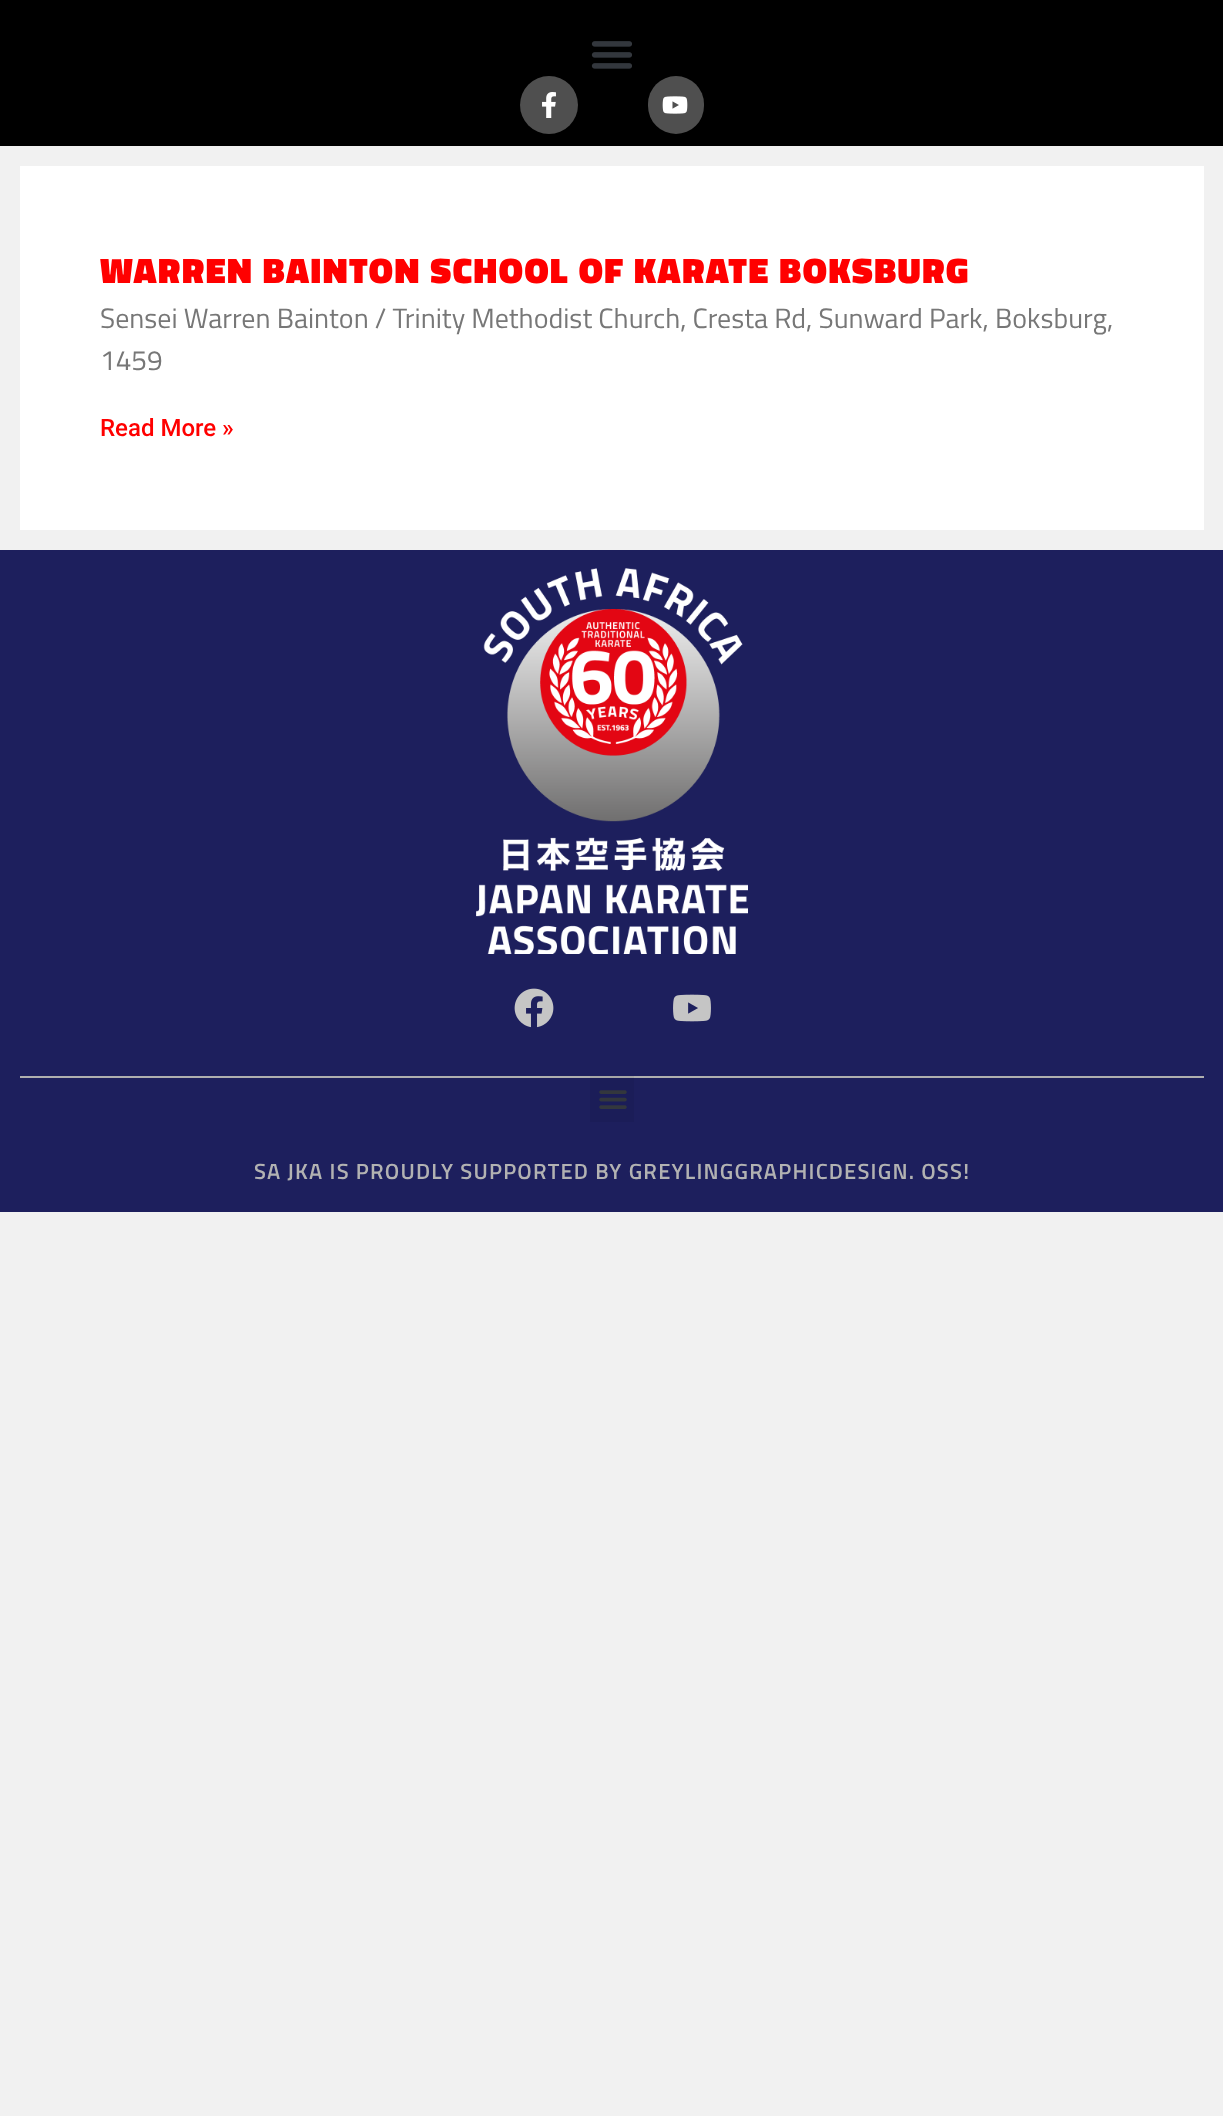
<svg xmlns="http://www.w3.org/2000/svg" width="1223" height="2116">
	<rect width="100%" height="100%" fill="#F1F1F1" />
	<rect x="0" y="0" width="1223" height="146" fill="#000000" />
	<image x="591" y="41" width="41" height="28" href="assets/img1.png" />
	<circle cx="549" cy="105" r="29" fill="#4F4F4F" />
	<image x="542" y="92" width="14" height="26" href="assets/img2.png" />
	<rect x="648" y="76" width="56" height="58" rx="28" fill="#4F4F4F" />
	<image x="662" y="96" width="26" height="18" href="assets/img3.png" />
	<rect x="20" y="166" width="1184" height="364" fill="#FFFFFF" />
	<text x="100" y="283" font-family="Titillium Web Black" font-size="36" font-weight="900" letter-spacing="1.6" fill="#FF0000">WARREN BAINTON SCHOOL OF KARATE BOKSBURG</text>
	<g font-family="Titillium Web" font-size="28" fill="#777777">
		<text x="100" y="328">Sensei Warren Bainton / Trinity Methodist Church, Cresta Rd, Sunward Park, Boksburg,</text>
		<text x="100" y="370">1459</text>
	</g>
	<text x="100" y="436" font-family="Roboto" font-size="24" font-weight="500" fill="#FF0000">Read More »</text>
	<rect x="0" y="550" width="1223" height="662" fill="#1D1F5D" />
	<image x="476" y="568" width="272" height="386" href="assets/img4.png" />
	<image x="514" y="988" width="40" height="40" href="assets/img5.png" />
	<image x="673" y="994" width="38" height="28" href="assets/img6.png" />
	<rect x="20" y="1076" width="1184" height="2" fill="#AFAFAF" />
	<rect x="590" y="1076" width="44" height="46" fill="#000000" fill-opacity="0.05" />
	<image x="599" y="1090" width="28" height="19" href="assets/img7.png" />
	<text x="254" y="1179" font-family="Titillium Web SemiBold" font-size="22" font-weight="600" letter-spacing="1.2" fill="#B2B2B2">SA JKA IS PROUDLY SUPPORTED BY GREYLINGGRAPHICDESIGN. OSS!</text>
</svg>
